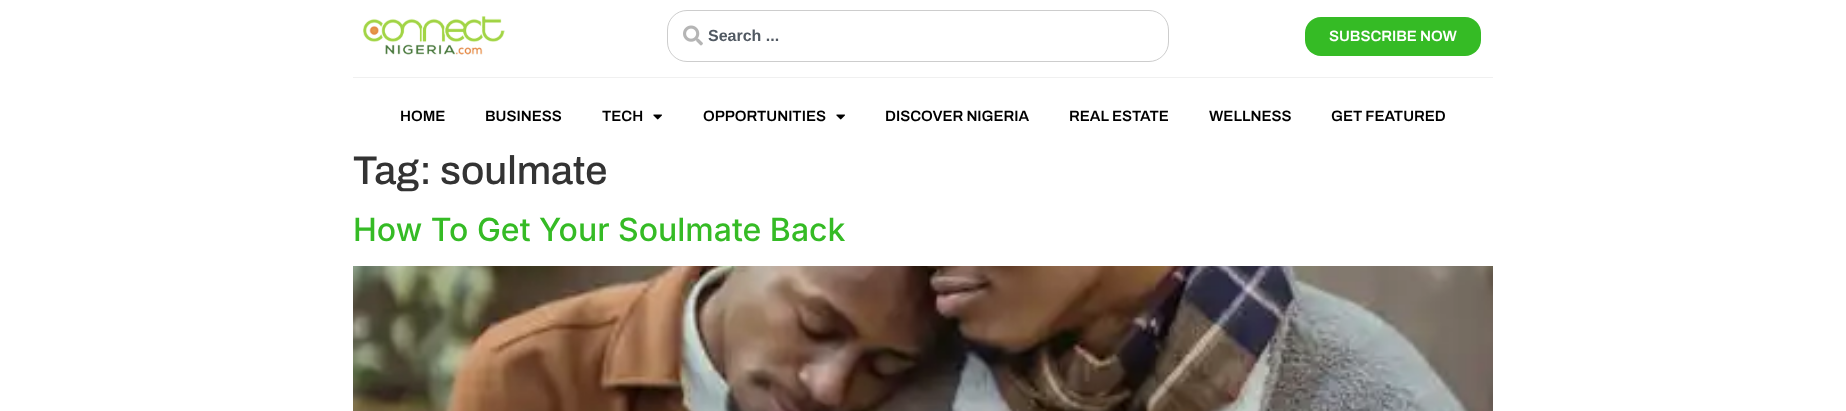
<svg xmlns="http://www.w3.org/2000/svg" width="1846" height="411">
	<rect width="100%" height="100%" fill="#FFFFFF" />
	<image x="363" y="16" width="142" height="39" href="assets/img1.png" />
	<rect x="667.5" y="10.5" width="501" height="51" rx="19.5" fill="none" stroke="#CDCDCD" />
	<image x="683" y="25" width="20" height="21" href="assets/img2.png" />
	<text x="708" y="41" font-family="Liberation Sans" font-size="16" font-weight="700" fill="#515962">Search ...</text>
	<rect x="1305" y="17" width="176" height="39" rx="16" fill="#35BB25" />
	<text x="1329" y="41" font-family="Archivo" font-size="15" font-weight="600" fill="#FFFFFF">SUBSCRIBE NOW</text>
	<rect x="353" y="77" width="1140" height="1" fill="#F0F0F0" />
	<g font-family="Archivo" font-size="15" font-weight="600" fill="#000000">
		<text x="400" y="121">HOME</text>
		<text x="485" y="121">BUSINESS</text>
		<text x="602" y="121">TECH</text>
	</g>
	<image x="653" y="114" width="9" height="6" href="assets/img3.png" />
	<text x="703" y="121" font-family="Archivo" font-size="15" font-weight="600" fill="#000000">OPPORTUNITIES</text>
	<image x="836" y="114" width="9" height="6" href="assets/img3.png" />
	<g font-family="Archivo" font-size="15" font-weight="600" fill="#000000">
		<text x="885" y="121">DISCOVER NIGERIA</text>
		<text x="1069" y="121">REAL ESTATE</text>
		<text x="1209" y="121">WELLNESS</text>
		<text x="1331" y="121">GET FEATURED</text>
	</g>
	<text x="353" y="184" font-family="Archivo" font-size="40" font-weight="500" fill="#333333">Tag: soulmate</text>
	<text x="353" y="241" font-family="Inter" font-size="32" font-weight="500" fill="#35BB25">How To Get Your Soulmate Back</text>
	<image x="353" y="266" width="1140" height="145" href="assets/img4.png" />
</svg>
